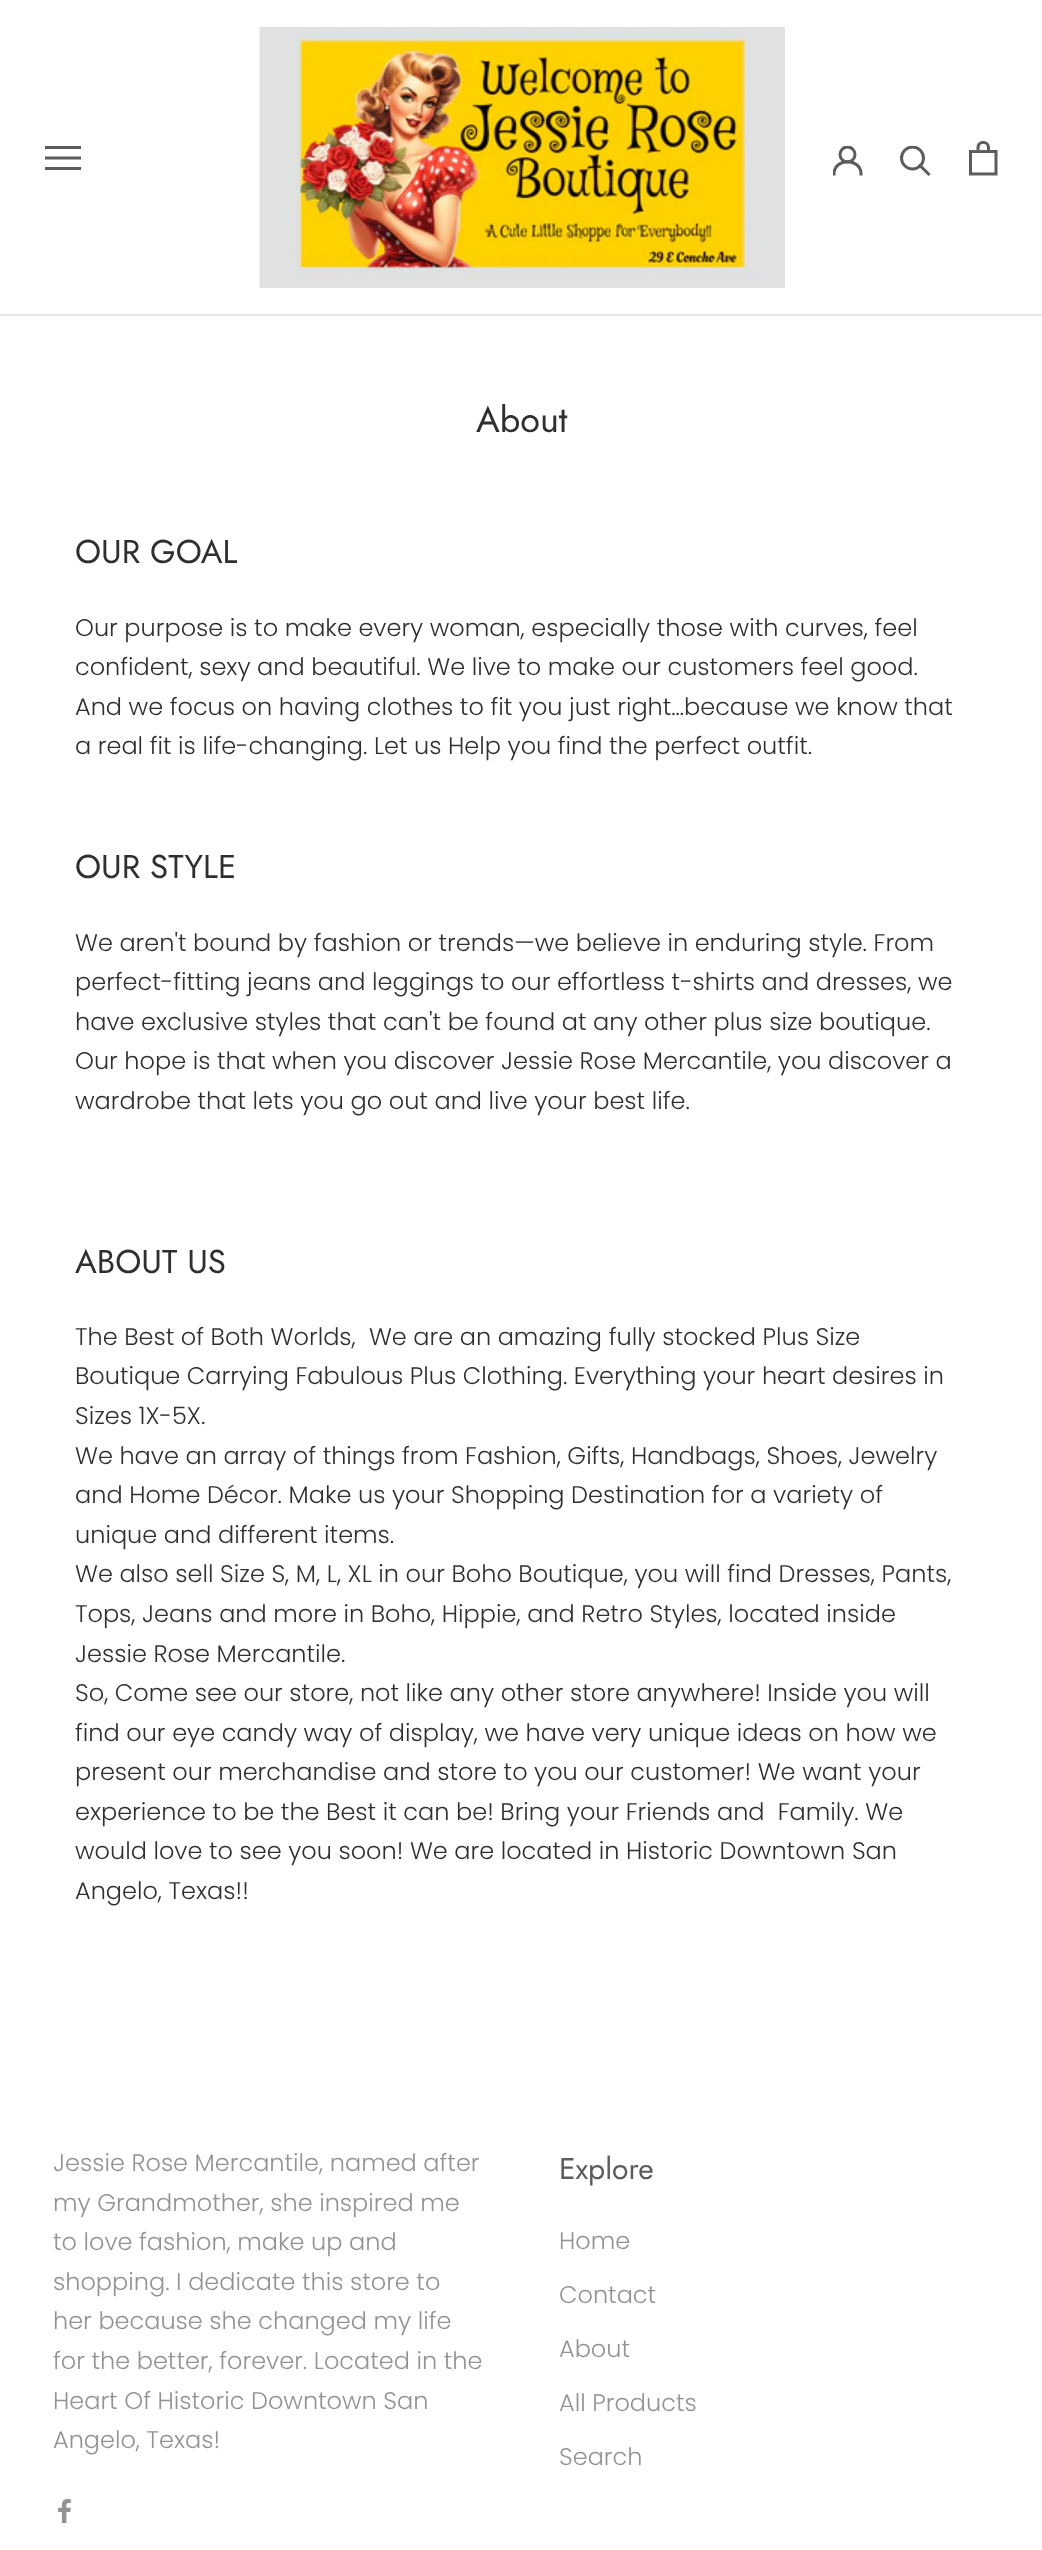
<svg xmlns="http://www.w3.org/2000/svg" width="1042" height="2550">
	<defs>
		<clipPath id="clip1"><rect x="833" y="146" width="30" height="30" /></clipPath>
		<clipPath id="clip2"><rect x="900" y="146" width="32" height="31" /></clipPath>
	</defs>
	<rect width="100%" height="100%" fill="#FFFFFF" />
	<rect x="0" y="314" width="1042" height="2" fill="#E7E7E7" />
	<path d="M45 170V167H81V170ZM45 156.5H81V159.5H45ZM45 146H81V149H45Z" fill="#5C5C5C" />
	<image x="259" y="27" width="526" height="261" href="assets/img1.png" />
	<g clip-path="url(#clip1)">
		<path d="M834 174C834 157.5 861 157.5 861 174" fill="none" stroke="#5C5C5C" stroke-width="3" stroke-linecap="square" />
		<circle cx="847.5" cy="154.5" r="7.5" fill="none" stroke="#5C5C5C" stroke-width="3" />
	</g>
	<path d="M928.5 174L920 165.5" fill="none" stroke="#5C5C5C" stroke-width="3" stroke-linecap="square" />
	<g clip-path="url(#clip2)">
		<circle cx="912.5" cy="158" r="11" fill="none" stroke="#5C5C5C" stroke-width="3" />
	</g>
	<image x="969" y="141" width="29" height="35" href="assets/img2.png" />
	<text x="476" y="432" font-family="Jost" font-size="36" fill="#302F2F">About</text>
	<text x="75" y="563" font-family="Jost" font-size="33" fill="#302F2F">OUR GOAL</text>
	<g font-family="Poppins" font-size="24" font-weight="300" fill="#302F2F">
		<text x="75" y="636">Our purpose is to make every woman, especially those with curves, feel</text>
		<text x="75" y="675">confident, sexy and beautiful. We live to make our customers feel good.</text>
		<text x="75" y="715">And we focus on having clothes to fit you just right…because we know that</text>
		<text x="75" y="754">a real fit is life-changing. Let us Help you find the perfect outfit.</text>
	</g>
	<text x="75" y="878" font-family="Jost" font-size="33" fill="#302F2F">OUR STYLE</text>
	<g font-family="Poppins" font-size="24" font-weight="300" fill="#302F2F">
		<text x="75" y="951">We aren't bound by fashion or trends—we believe in enduring style. From</text>
		<text x="75" y="990">perfect-fitting jeans and leggings to our effortless t-shirts and dresses, we</text>
		<text x="75" y="1030">have exclusive styles that can't be found at any other plus size boutique.</text>
		<text x="75" y="1069">Our hope is that when you discover Jessie Rose Mercantile, you discover a</text>
		<text x="75" y="1109">wardrobe that lets you go out and live your best life.</text>
	</g>
	<text x="75" y="1273" font-family="Jost" font-size="33" fill="#302F2F">ABOUT US</text>
	<g font-family="Poppins" font-size="24" font-weight="300" fill="#302F2F">
		<text x="75" y="1345" xml:space="preserve">The Best of Both Worlds,  We are an amazing fully stocked Plus Size</text>
		<text x="75" y="1384">Boutique Carrying Fabulous Plus Clothing. Everything your heart desires in</text>
		<text x="75" y="1424">Sizes 1X-5X.</text>
		<text x="75" y="1464">We have an array of things from Fashion, Gifts, Handbags, Shoes, Jewelry</text>
		<text x="75" y="1503">and Home Décor. Make us your Shopping Destination for a variety of</text>
		<text x="75" y="1543">unique and different items.</text>
		<text x="75" y="1582">We also sell Size S, M, L, XL in our Boho Boutique, you will find Dresses, Pants,</text>
		<text x="75" y="1622">Tops, Jeans and more in Boho, Hippie, and Retro Styles, located inside</text>
		<text x="75" y="1662">Jessie Rose Mercantile.</text>
		<text x="75" y="1701">So, Come see our store, not like any other store anywhere! Inside you will</text>
		<text x="75" y="1741">find our eye candy way of display, we have very unique ideas on how we</text>
		<text x="75" y="1780">present our merchandise and store to you our customer! We want your</text>
		<text x="75" y="1820" xml:space="preserve">experience to be the Best it can be! Bring your Friends and  Family. We</text>
		<text x="75" y="1859">would love to see you soon! We are located in Historic Downtown San</text>
		<text x="75" y="1899">Angelo, Texas!!</text>
	</g>
	<g font-family="Poppins" font-size="24" font-weight="300" fill="#939393">
		<text x="53" y="2171">Jessie Rose Mercantile, named after</text>
		<text x="53" y="2211">my Grandmother, she inspired me</text>
		<text x="53" y="2250">to love fashion, make up and</text>
		<text x="53" y="2290">shopping. I dedicate this store to</text>
		<text x="53" y="2329">her because she changed my life</text>
		<text x="53" y="2369">for the better, forever. Located in the</text>
		<text x="53" y="2409">Heart Of Historic Downtown San</text>
		<text x="53" y="2448">Angelo, Texas!</text>
	</g>
	<image x="58" y="2499" width="13" height="24" href="assets/img3.png" />
	<text x="559" y="2179" font-family="Jost" font-size="30" fill="#5C5C5C">Explore</text>
	<g font-family="Poppins" font-size="24" font-weight="300" fill="#939393">
		<text x="559" y="2249">Home</text>
		<text x="559" y="2303">Contact</text>
		<text x="559" y="2357">About</text>
		<text x="559" y="2411">All Products</text>
		<text x="559" y="2465">Search</text>
	</g>
</svg>
